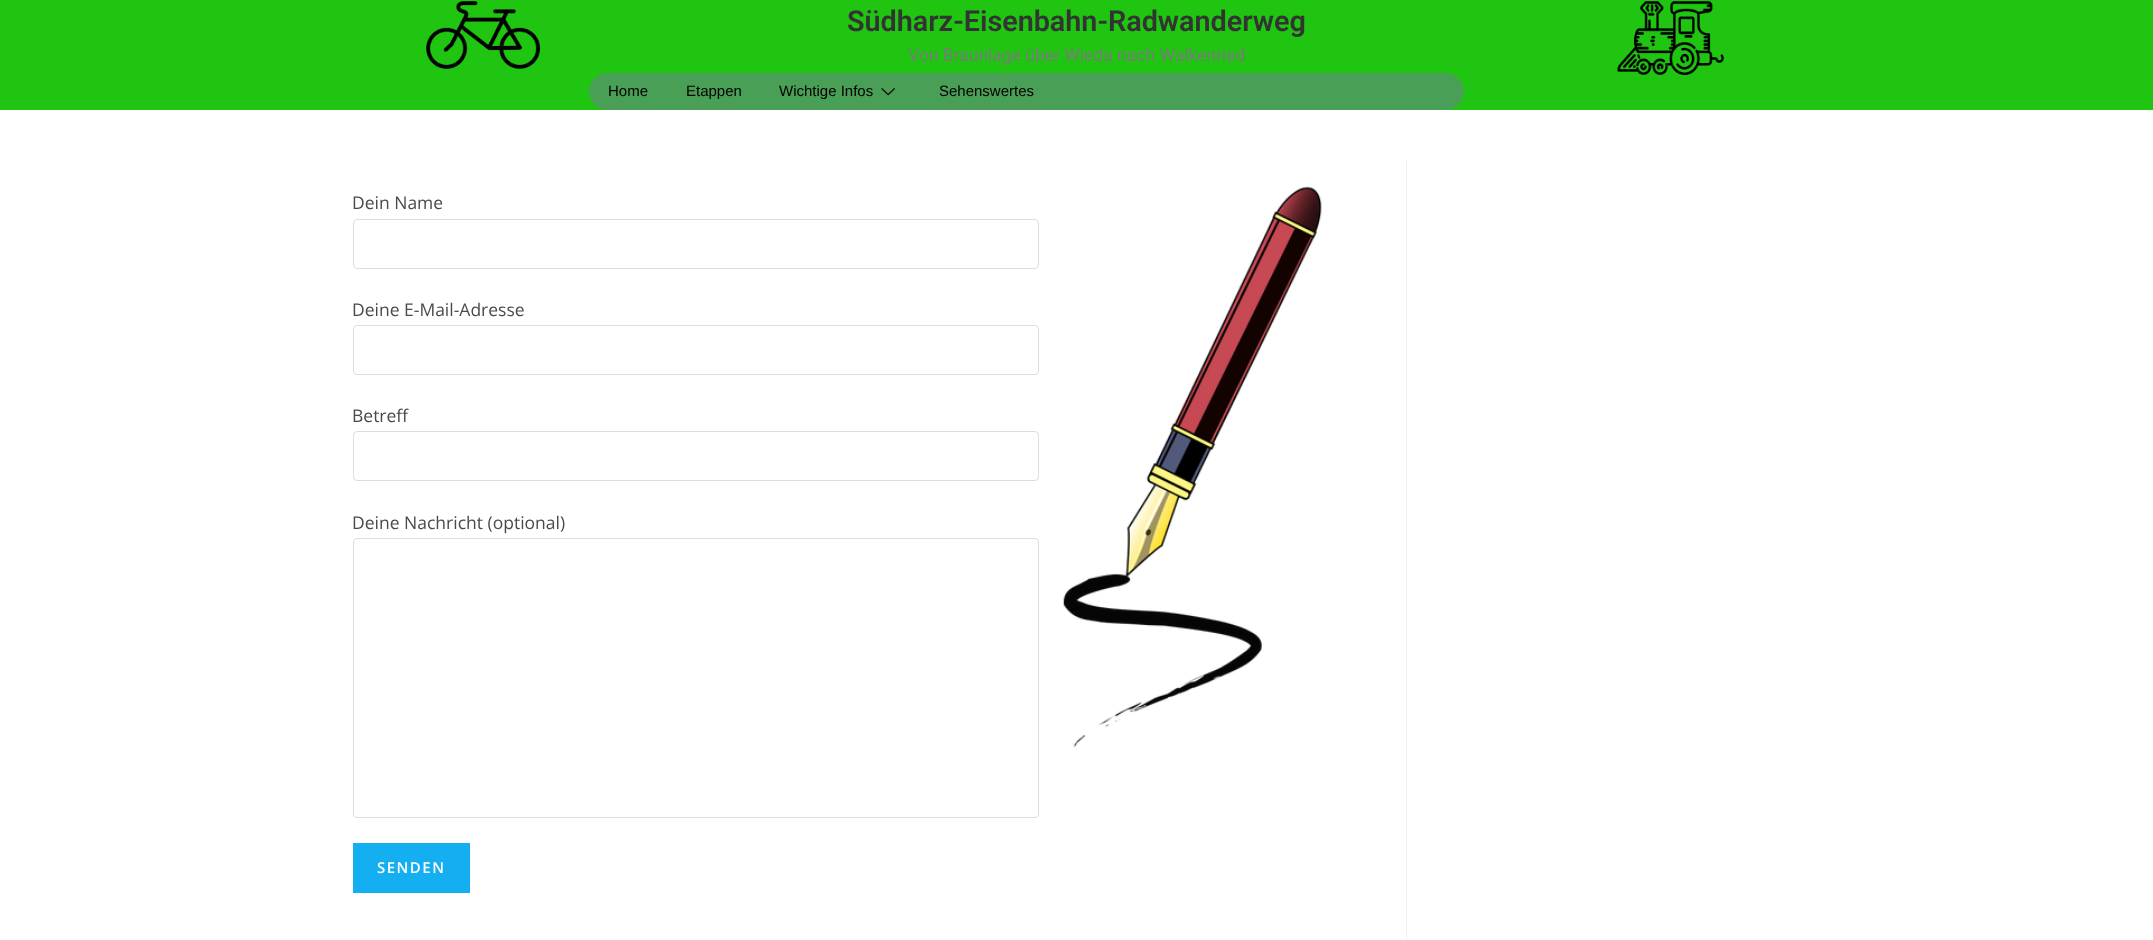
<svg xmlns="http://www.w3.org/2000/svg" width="2153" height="940">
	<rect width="100%" height="100%" fill="#FFFFFF" />
	<rect x="0" y="0" width="2153" height="110" fill="#1FC511" />
	<image x="426" y="1" width="114" height="68" href="assets/img1.png" />
	<text x="847" y="31" font-family="Roboto" font-size="28.75" font-weight="600" fill="#333333">Südharz-Eisenbahn-Radwanderweg</text>
	<text x="908" y="61" font-family="Roboto" font-size="17.5" fill="#7A7A7A">Von Braunlage über Wieda nach Walkenried</text>
	<rect x="589" y="73" width="875" height="37" rx="18.5" fill="#499F55" />
	<g font-family="Liberation Sans" font-size="15" fill="#000000">
		<text x="608" y="96">Home</text>
		<text x="686" y="96">Etappen</text>
		<text x="779" y="96">Wichtige Infos</text>
	</g>
	<image x="881" y="88" width="14" height="8" href="assets/img2.png" />
	<text x="939" y="96" font-family="Liberation Sans" font-size="15" fill="#000000">Sehenswertes</text>
	<image x="1617" y="1" width="107" height="74" href="assets/img3.png" />
	<rect x="1406" y="161" width="1" height="779" fill="#F1F1F1" />
	<text x="352" y="209" font-family="Open Sans" font-size="17.5" fill="#4A4A4A">Dein Name</text>
	<rect x="353.5" y="219.5" width="685" height="49" rx="3.5" fill="none" stroke="#DDDDDD" />
	<text x="352" y="316" font-family="Open Sans" font-size="17.5" fill="#4A4A4A">Deine E-Mail-Adresse</text>
	<rect x="353.5" y="325.5" width="685" height="49" rx="3.5" fill="none" stroke="#DDDDDD" />
	<text x="352" y="422" font-family="Open Sans" font-size="17.5" fill="#4A4A4A">Betreff</text>
	<rect x="353.5" y="431.5" width="685" height="49" rx="3.5" fill="none" stroke="#DDDDDD" />
	<text x="352" y="529" font-family="Open Sans" font-size="17.5" fill="#4A4A4A">Deine Nachricht (optional)</text>
	<rect x="353.5" y="538.5" width="685" height="279" rx="3.5" fill="none" stroke="#DDDDDD" />
	<rect x="353" y="843" width="117" height="50" fill="#13AFF0" />
	<text x="377" y="873" font-family="Open Sans" font-size="15" font-weight="600" letter-spacing="1.5" fill="#FFFFFF">SENDEN</text>
	<image x="1063" y="186" width="259" height="562" href="assets/img4.png" />
</svg>
